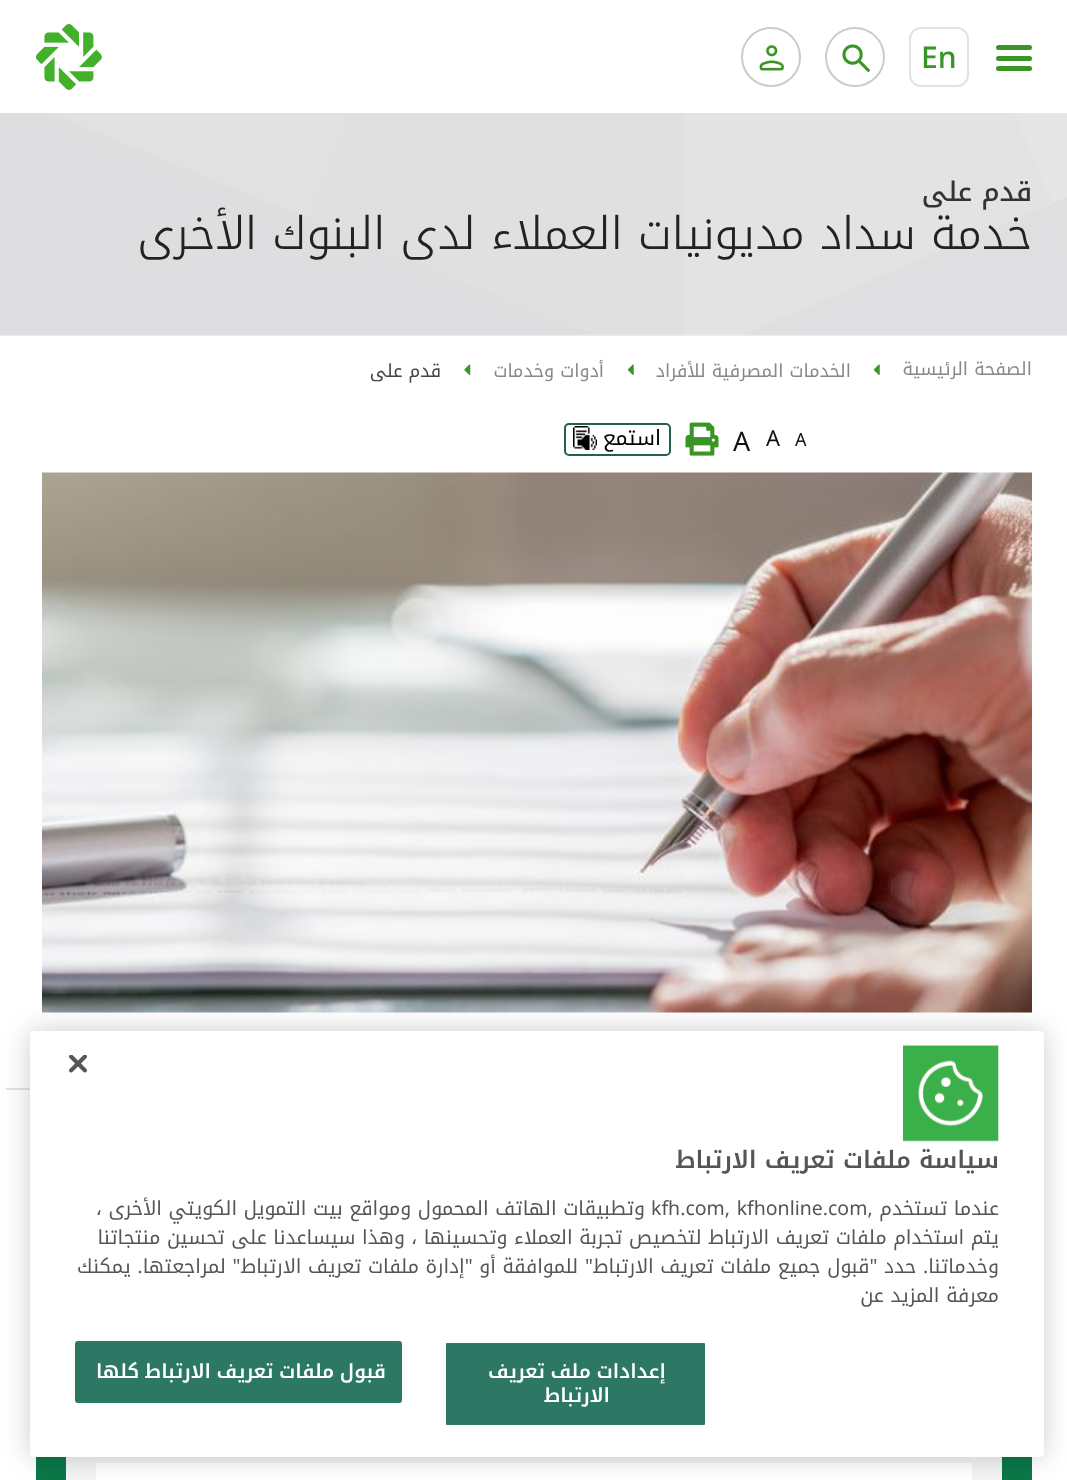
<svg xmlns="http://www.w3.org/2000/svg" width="1067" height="1480">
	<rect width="100%" height="100%" fill="#FFFFFF" />
	<rect x="996" y="45" width="36" height="5" rx="2.5" fill="#399624" />
	<rect x="996" y="56" width="36" height="5" rx="2.5" fill="#399624" />
	<rect x="996" y="66" width="36" height="5" rx="2.5" fill="#399624" />
	<rect x="910" y="28" width="58" height="58" rx="11" fill="none" stroke="#E3E3E3" stroke-width="2" />
	<text x="921" y="68" font-family="Noto Kufi Arabic" font-size="30" font-weight="500" fill="#399624">En</text>
	<circle cx="855" cy="57" r="29" fill="none" stroke="#CCCBCB" stroke-width="2" />
	<image x="842" y="44" width="28" height="28" href="assets/img1.png" />
	<circle cx="771" cy="57" r="29" fill="none" stroke="#CCCBCB" stroke-width="2" />
	<image x="759" y="45" width="25" height="26" href="assets/img2.png" />
	<image x="36" y="24" width="66" height="66" href="assets/img3.png" />
	<image x="0" y="113" width="1067" height="223" href="assets/img4.png" />
	<text x="1032" y="201" font-family="Noto Kufi Arabic" font-size="27" font-weight="500" direction="rtl" fill="#333333">قدم على</text>
	<text x="1032" y="249" font-family="Noto Kufi Arabic" font-size="45" font-weight="300" direction="rtl" fill="#222222">خدمة سداد مديونيات العملاء لدى البنوك الأخرى</text>
	<text x="1032" y="375" font-family="Noto Kufi Arabic" font-size="18" direction="rtl" fill="#888888">الصفحة الرئيسية</text>
	<image x="873" y="364" width="7" height="11" href="assets/img5.png" />
	<text x="851" y="377" font-family="Noto Kufi Arabic" font-size="18" direction="rtl" fill="#888888">الخدمات المصرفية للأفراد</text>
	<image x="627" y="364" width="7" height="11" href="assets/img5.png" />
	<text x="604" y="377" font-family="Noto Kufi Arabic" font-size="18" direction="rtl" fill="#888888">أدوات وخدمات</text>
	<image x="464" y="364" width="7" height="11" href="assets/img6.png" />
	<text x="441" y="377" font-family="Noto Kufi Arabic" font-size="18" direction="rtl" fill="#444444">قدم على</text>
	<text x="795" y="446" font-family="Noto Kufi Arabic" font-size="18" fill="#111111">A</text>
	<text x="766" y="446" font-family="Noto Kufi Arabic" font-size="22" fill="#111111">A</text>
	<text x="733" y="451" font-family="Noto Kufi Arabic" font-size="27" fill="#111111">A</text>
	<image x="685" y="422" width="34" height="34" href="assets/img7.png" />
	<rect x="565" y="424" width="105" height="31" rx="4" fill="none" stroke="#24604F" stroke-width="2" />
	<image x="573" y="426" width="24" height="24" href="assets/img8.png" />
	<text x="661" y="445" font-family="Noto Kufi Arabic" font-size="21" direction="rtl" fill="#000000">استمع</text>
	<image x="42" y="472" width="990" height="541" href="assets/img9.png" />
	<rect x="6" y="1088" width="24" height="2" fill="#DEE2E6" />
	<rect x="36" y="1457" width="996" height="23" fill="#0C7749" />
	<rect x="66" y="1457" width="936" height="23" fill="#F4F4F4" />
	<rect x="96" y="1463" width="876" height="17" fill="#FFFFFF" />
	<rect x="30" y="1031" width="1014" height="426" rx="4" fill="#000000" fill-opacity="0.2" filter="blur(13.5px)" />
	<rect x="30" y="1031" width="1014" height="426" rx="4" fill="#FFFFFF" />
	<image x="69" y="1055" width="18" height="18" href="assets/img10.png" />
	<text x="999" y="1168" font-family="Noto Kufi Arabic" font-size="24" font-weight="600" direction="rtl" fill="#555555">سياسة ملفات تعريف الارتباط</text>
	<text x="999" y="1215" font-family="Noto Kufi Arabic" font-size="19.5" direction="rtl" fill="#555555">عندما تستخدم ,</text>
	<text x="651" y="1215" font-family="Noto Kufi Arabic" font-size="19.5" fill="#555555">kfh.com, kfhonline.com</text>
	<g font-family="Noto Kufi Arabic" font-size="19.5" direction="rtl" fill="#555555">
		<text x="645" y="1215">وتطبيقات الهاتف المحمول ومواقع بيت التمويل الكويتي الأخرى ،</text>
		<text x="999" y="1244">يتم استخدام ملفات تعريف الارتباط لتخصيص تجربة العملاء وتحسينها ، وهذا سيساعدنا على تحسين منتجاتنا</text>
		<text x="999" y="1273">وخدماتنا. حدد "قبول جميع ملفات تعريف الارتباط" للموافقة أو "إدارة ملفات تعريف الارتباط" لمراجعتها. يمكنك</text>
		<text x="999" y="1302">معرفة المزيد عن</text>
	</g>
	<image x="903" y="1045" width="96" height="97" href="assets/img11.png" />
	<rect x="445" y="1342" width="261" height="84" rx="2" fill="#2D7864" stroke="#FFFFFF" stroke-width="2" />
	<g font-family="Noto Kufi Arabic" font-size="19.5" font-weight="600" letter-spacing="0.2" direction="rtl" fill="#FFFFFF">
		<text x="666" y="1378" word-spacing="-1">إعدادات ملف تعريف</text>
		<text x="610" y="1402">الارتباط</text>
	</g>
	<rect x="76" y="1342" width="325" height="60" rx="2" fill="#2D7864" stroke="#2D7864" stroke-width="2" />
	<text x="386" y="1378" word-spacing="-1" font-family="Noto Kufi Arabic" font-size="19.5" font-weight="600" letter-spacing="0.2" direction="rtl" fill="#FFFFFF">قبول ملفات تعريف الارتباط كلها</text>
</svg>
